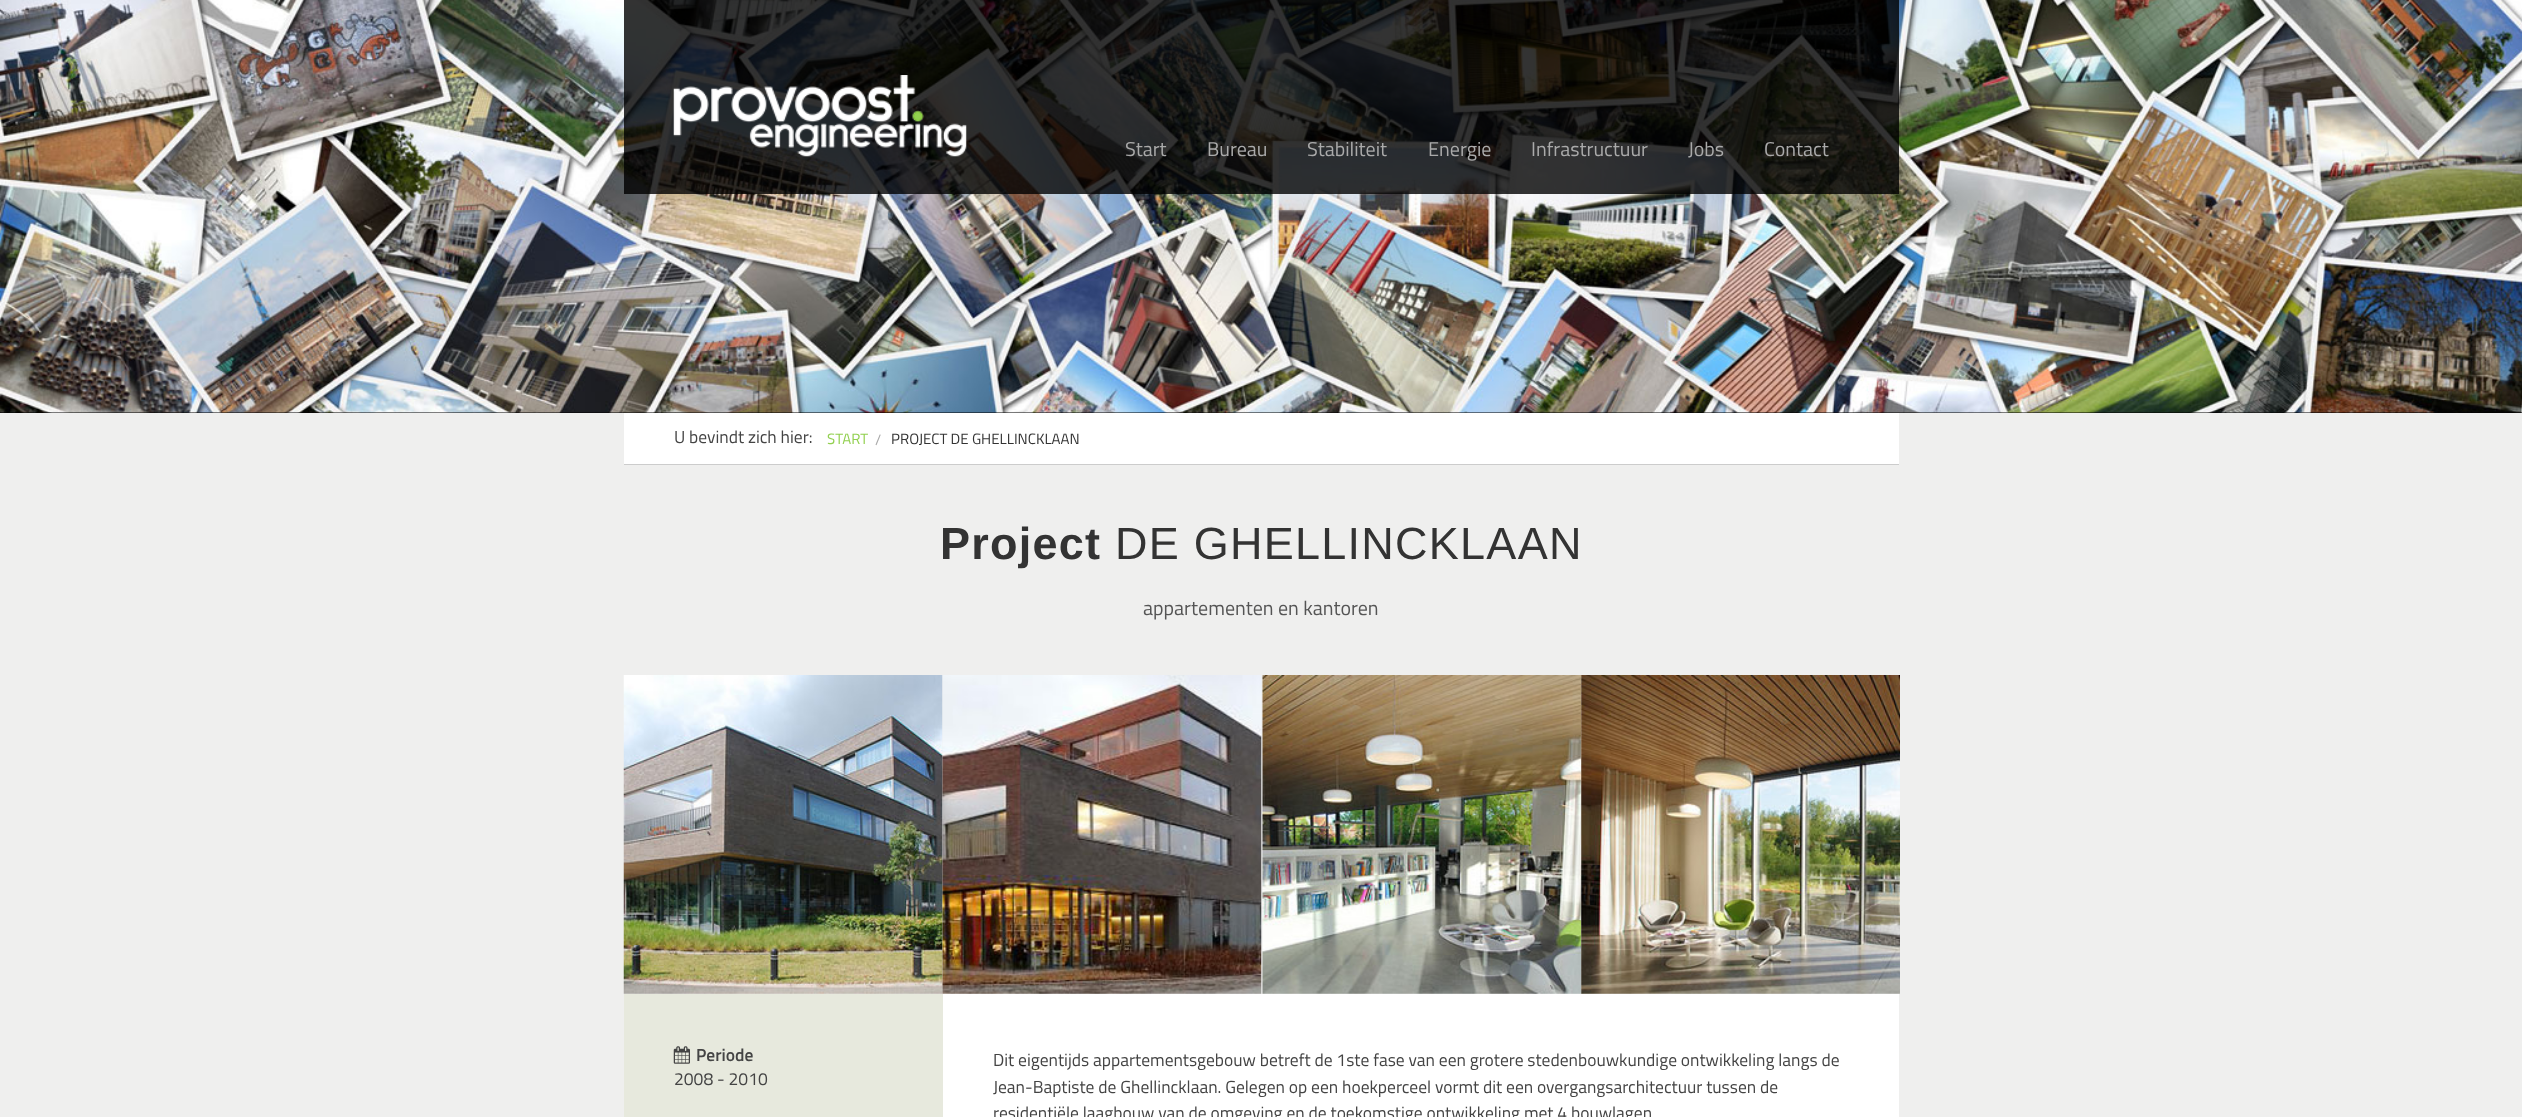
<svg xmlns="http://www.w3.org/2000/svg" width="2522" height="1117">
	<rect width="100%" height="100%" fill="#EFEFEE" />
	<rect x="0" y="412" width="2522" height="1" fill="#000000" />
	<image x="0" y="0" width="2522" height="413" href="assets/img1.png" />
	<rect x="624" y="0" width="1275" height="194" fill="#000000" fill-opacity="0.8" />
	<image x="673" y="75" width="294" height="82" href="assets/img2.png" />
	<g font-family="Titillium Web" font-size="20" fill="#AAAAAA">
		<text x="1125" y="156">Start</text>
		<text x="1207" y="156">Bureau</text>
		<text x="1307" y="156">Stabiliteit</text>
		<text x="1428" y="156">Energie</text>
		<text x="1531" y="156">Infrastructuur</text>
		<text x="1688" y="156">Jobs</text>
		<text x="1764" y="156">Contact</text>
	</g>
	<rect x="624" y="413" width="1275" height="51" fill="#FFFFFF" />
	<rect x="624" y="464" width="1275" height="1" fill="#CCCCCC" />
	<text x="674" y="443" font-family="Titillium Web" font-size="17.5" fill="#444444">U bevindt zich hier:</text>
	<text x="827" y="444" font-family="Titillium Web" font-size="15" fill="#92D050">START</text>
	<text x="875" y="445" font-family="Titillium Web" font-size="15" fill="#AAAAAA">/</text>
	<text x="891" y="444" font-family="Titillium Web" font-size="15" fill="#333333">PROJECT DE GHELLINCKLAAN</text>
	<text x="940" y="559" font-family="Liberation Sans" font-size="45" font-weight="700" letter-spacing="1.25" fill="#333333">Project</text>
	<text x="1115" y="559" font-family="Liberation Sans" font-size="45" letter-spacing="1.25" fill="#333333">DE GHELLINCKLAAN</text>
	<text x="1143" y="615" font-family="Titillium Web" font-size="20" fill="#555555">appartementen en kantoren</text>
	<image x="623" y="675" width="320" height="319" href="assets/img3.png" />
	<image x="942" y="675" width="320" height="319" href="assets/img4.png" />
	<image x="1262" y="675" width="320" height="319" href="assets/img5.png" />
	<image x="1581" y="675" width="319" height="319" href="assets/img6.png" />
	<rect x="943" y="994" width="956" height="123" fill="#FFFFFF" />
	<rect x="624" y="994" width="319" height="123" fill="#E7E9DD" />
	<image x="673" y="1046" width="17" height="18" href="assets/img7.png" />
	<text x="696" y="1061" font-family="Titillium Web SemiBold" font-size="17.5" font-weight="600" fill="#444444">Periode</text>
	<g font-family="Titillium Web" font-size="17.5" fill="#444444">
		<text x="674" y="1085">2008 - 2010</text>
		<text x="993" y="1066">Dit eigentijds appartementsgebouw betreft de 1ste fase van een grotere stedenbouwkundige ontwikkeling langs de</text>
		<text x="993" y="1093">Jean-Baptiste de Ghellincklaan. Gelegen op een hoekperceel vormt dit een overgangsarchitectuur tussen de</text>
		<text x="993" y="1119">residentiële laagbouw van de omgeving en de toekomstige ontwikkeling met 4 bouwlagen</text>
	</g>
</svg>
